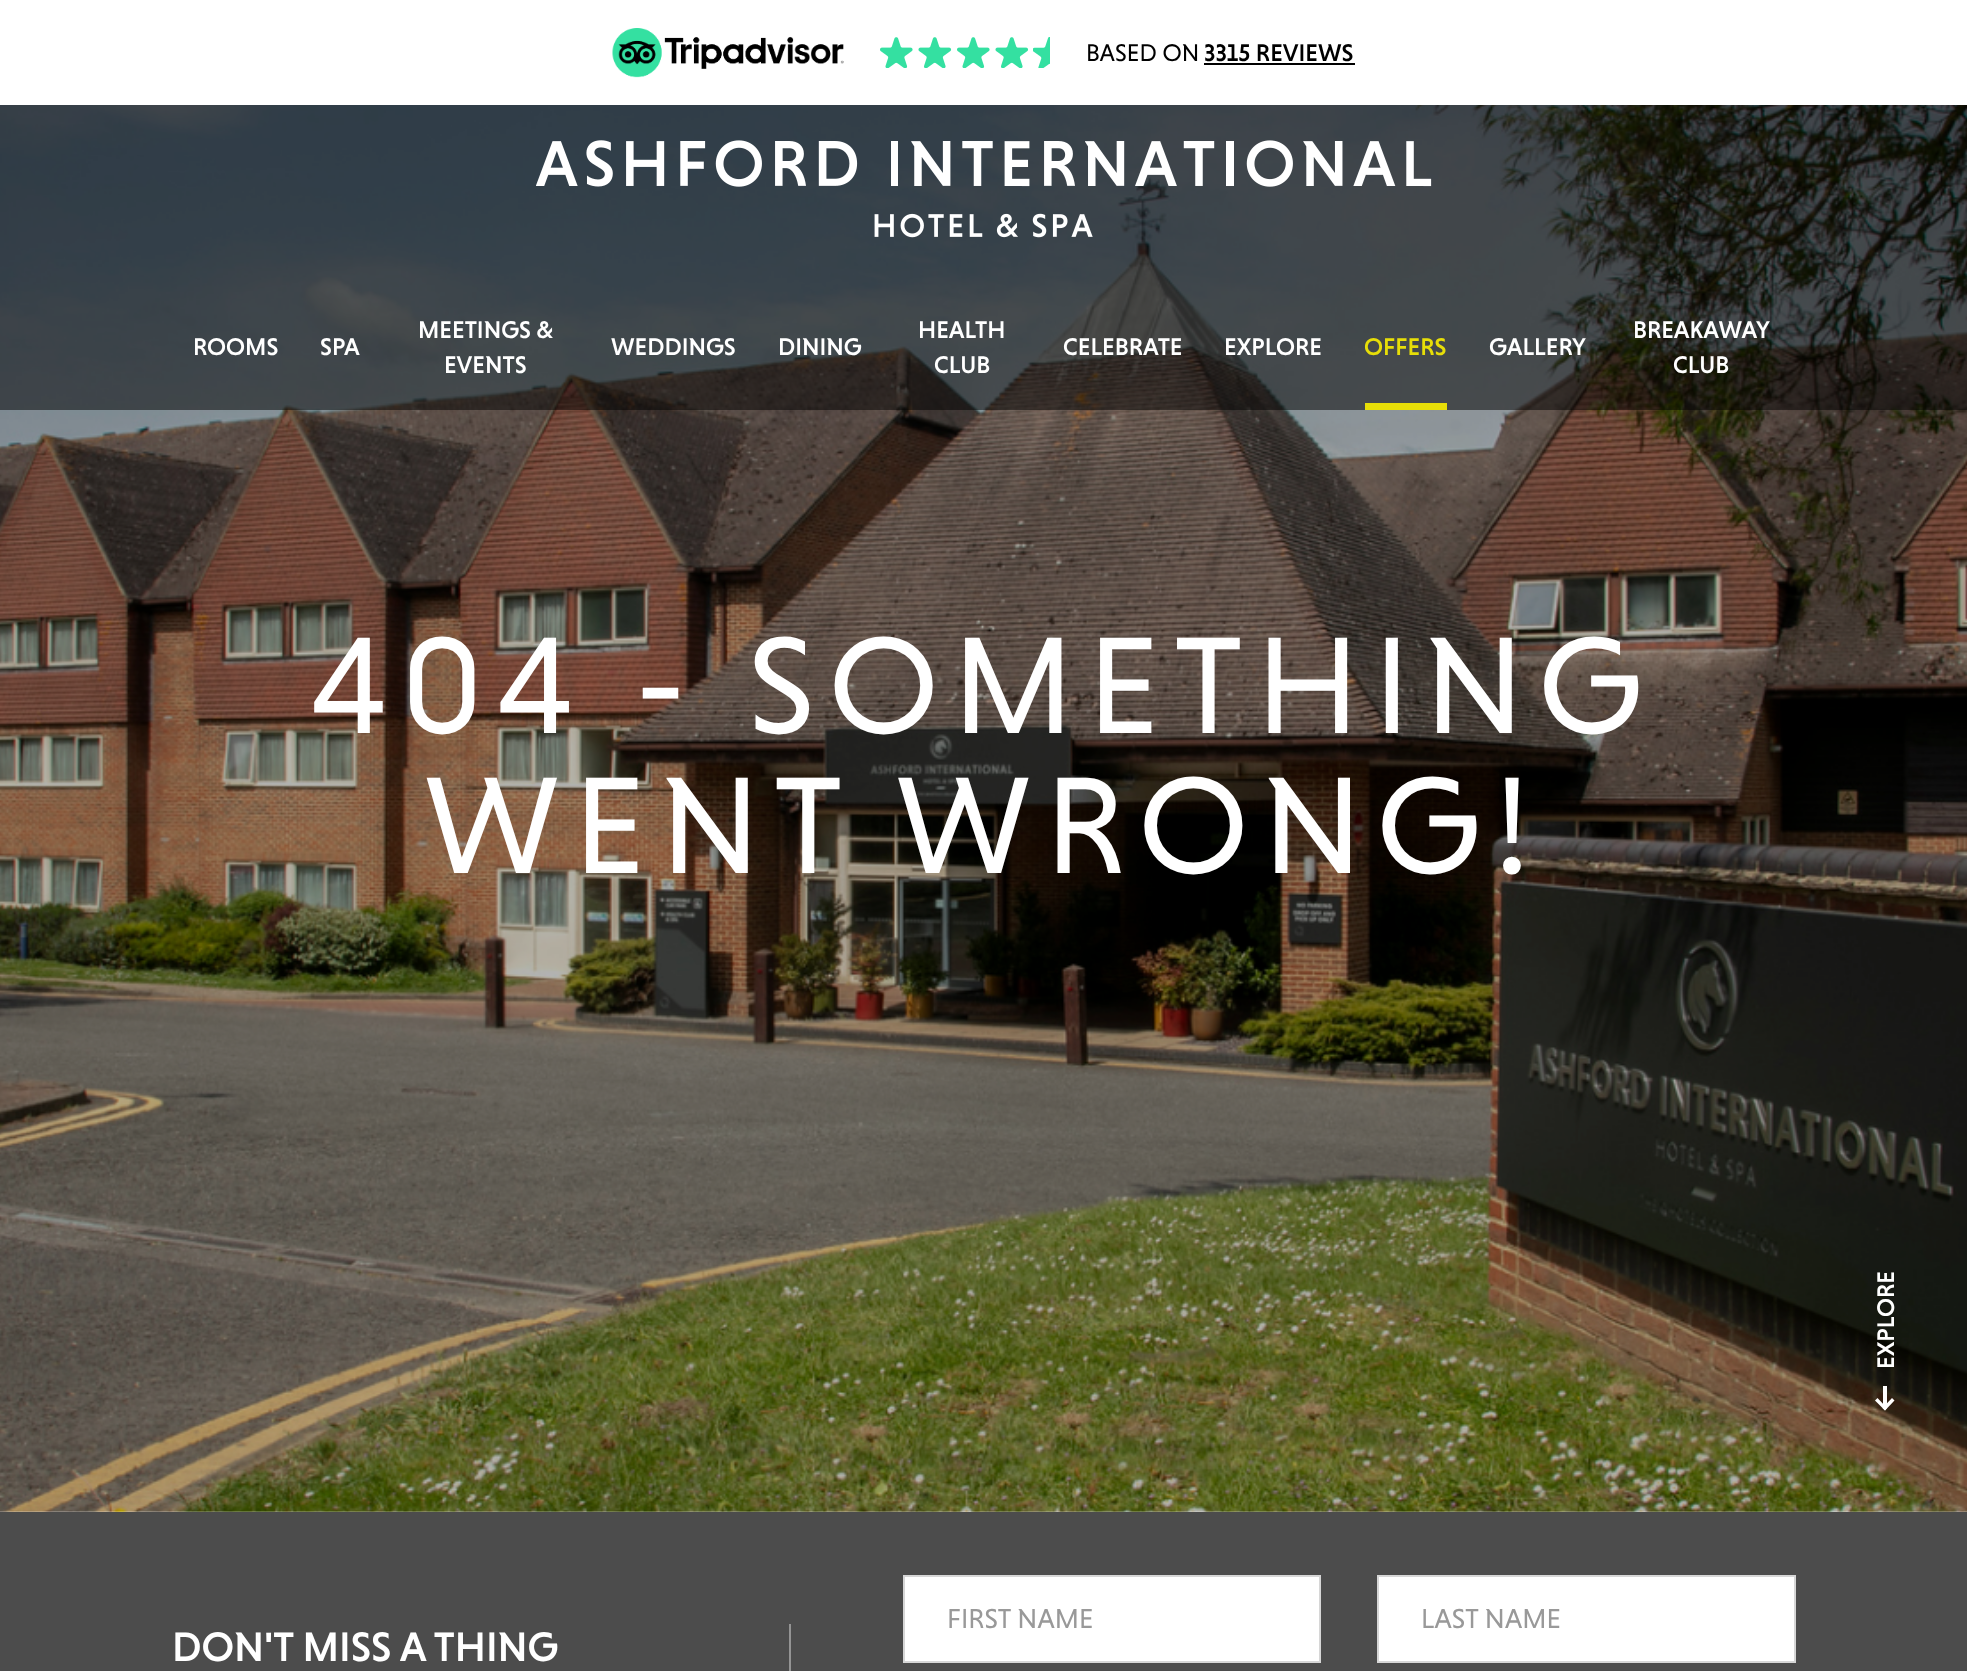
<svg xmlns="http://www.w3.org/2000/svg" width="1967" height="1671">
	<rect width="100%" height="100%" fill="#FFFFFF" />
	<image x="0" y="105" width="1967" height="1407" href="assets/img6.png" />
	<rect x="0" y="105" width="1967" height="305" fill="#000000" fill-opacity="0.5" />
	<image x="612" y="28" width="232" height="50" href="assets/img1.png" />
	<image x="880" y="37" width="33" height="31" href="assets/img2.png" />
	<image x="918" y="37" width="34" height="31" href="assets/img3.png" />
	<image x="957" y="37" width="33" height="31" href="assets/img2.png" />
	<image x="995" y="37" width="34" height="31" href="assets/img3.png" />
	<image x="1033" y="37" width="17" height="31" href="assets/img4.png" />
	<text x="1086" y="61" font-family="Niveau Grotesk" font-size="24.5" fill="#000000">BASED ON</text>
	<text x="1204" y="61" font-family="Niveau Grotesk" font-size="24.5" font-weight="500" fill="#000000">3315 REVIEWS</text>
	<rect x="1204" y="63" width="151" height="2" fill="#000000" />
	<image x="536" y="140" width="896" height="98" href="assets/img5.png" />
	<g font-family="Niveau Grotesk" font-size="24.5" font-weight="500" fill="#FFFFFF">
		<text x="193" y="355">ROOMS</text>
		<text x="320" y="355">SPA</text>
		<text x="418" y="338">MEETINGS &amp;</text>
		<text x="444" y="373">EVENTS</text>
		<text x="611" y="355">WEDDINGS</text>
		<text x="778" y="355">DINING</text>
		<text x="918" y="338">HEALTH</text>
		<text x="934" y="373">CLUB</text>
		<text x="1063" y="355">CELEBRATE</text>
		<text x="1224" y="355">EXPLORE</text>
	</g>
	<text x="1364" y="355" font-family="Niveau Grotesk" font-size="24.5" font-weight="500" fill="#E7DE08">OFFERS</text>
	<rect x="1365" y="403" width="82" height="7" fill="#E7DE08" />
	<g font-family="Niveau Grotesk" font-size="24.5" font-weight="500" fill="#FFFFFF">
		<text x="1489" y="355">GALLERY</text>
		<text x="1633" y="338">BREAKAWAY</text>
		<text x="1673" y="373">CLUB</text>
	</g>
	<g font-family="Niveau Grotesk" font-size="140" letter-spacing="14" fill="#FFFFFF">
		<text x="311" y="733">404 - SOMETHING</text>
		<text x="424" y="873">WENT WRONG!</text>
	</g>
	<text x="1894" y="1369" transform="rotate(-90 1894 1369)" font-family="Niveau Grotesk" font-size="24.5" font-weight="500" fill="#FFFFFF">EXPLORE</text>
	<rect x="1883" y="1386" width="4" height="21" fill="#FFFFFF" />
	<path d="M1882.5 1408L1892 1398L1894.5 1400.5L1885 1410.5Z" fill="#FFFFFF" />
	<path d="M1875 1400.5L1877.5 1398L1887 1408L1885 1410.5Z" fill="#FFFFFF" />
	<rect x="0" y="1512" width="1967" height="159" fill="#4C4C4C" />
	<rect x="904" y="1576" width="416" height="86" fill="#FFFFFF" stroke="#D6D6D6" stroke-width="2" />
	<text x="947" y="1628" font-family="Niveau Grotesk" font-size="28" fill="#999999">FIRST NAME</text>
	<rect x="1378" y="1576" width="417" height="86" fill="#FFFFFF" stroke="#D6D6D6" stroke-width="2" />
	<text x="1421" y="1628" font-family="Niveau Grotesk" font-size="28" fill="#999999">LAST NAME</text>
	<text x="172" y="1661" font-family="Niveau Grotesk" font-size="42" font-weight="500" fill="#FFFFFF">DON'T MISS A THING</text>
	<rect x="789" y="1624" width="2" height="47" fill="#949494" />
</svg>
